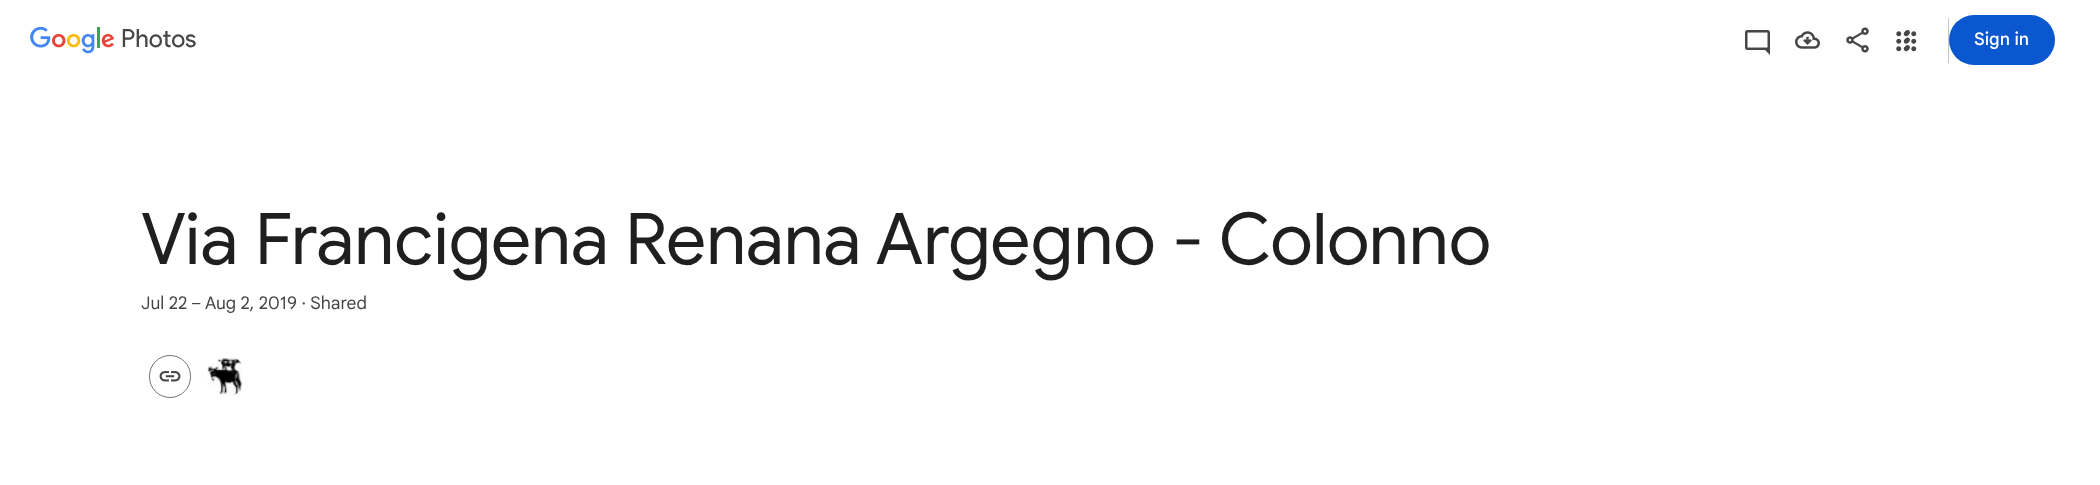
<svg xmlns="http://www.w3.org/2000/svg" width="2100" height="485">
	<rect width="100%" height="100%" fill="#FFFFFF" />
	<image x="30" y="26" width="84" height="28" href="assets/img1.png" />
	<text x="121" y="47" font-family="Product Sans" font-size="25" fill="#444746">Photos</text>
	<image x="1745" y="30" width="25" height="25" href="assets/img2.png" />
	<image x="1795" y="31" width="25" height="18" href="assets/img3.png" />
	<image x="1846" y="27" width="23" height="26" href="assets/img4.png" />
	<image x="1905" y="30" width="5" height="20" href="assets/img5.png" />
	<rect x="1948" y="18" width="1" height="45" fill="#C4C7C5" />
	<text x="141" y="264" font-family="Google Sans" font-size="71.25" fill="#1F1F1F">Via Francigena Renana Argegno - Colonno</text>
	<text x="141" y="309" font-family="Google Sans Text" font-size="17.5" fill="#444746">Jul 22 – Aug 2, 2019 · Shared</text>
	<rect x="149.5" y="355.5" width="41" height="42" rx="20.5" fill="none" stroke="#747775" />
	<image x="159" y="371" width="22" height="11" href="assets/img6.png" />
	<image x="207" y="357" width="36" height="39" href="assets/img7.png" />
	<image x="1896" y="31" width="21" height="21" href="assets/img8.png" />
	<rect x="1949" y="15" width="106" height="50" rx="25" fill="#0B57D0" />
	<text x="1974" y="45" font-family="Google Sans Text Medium" font-size="17.5" font-weight="500" fill="#FFFFFF">Sign in</text>
</svg>
